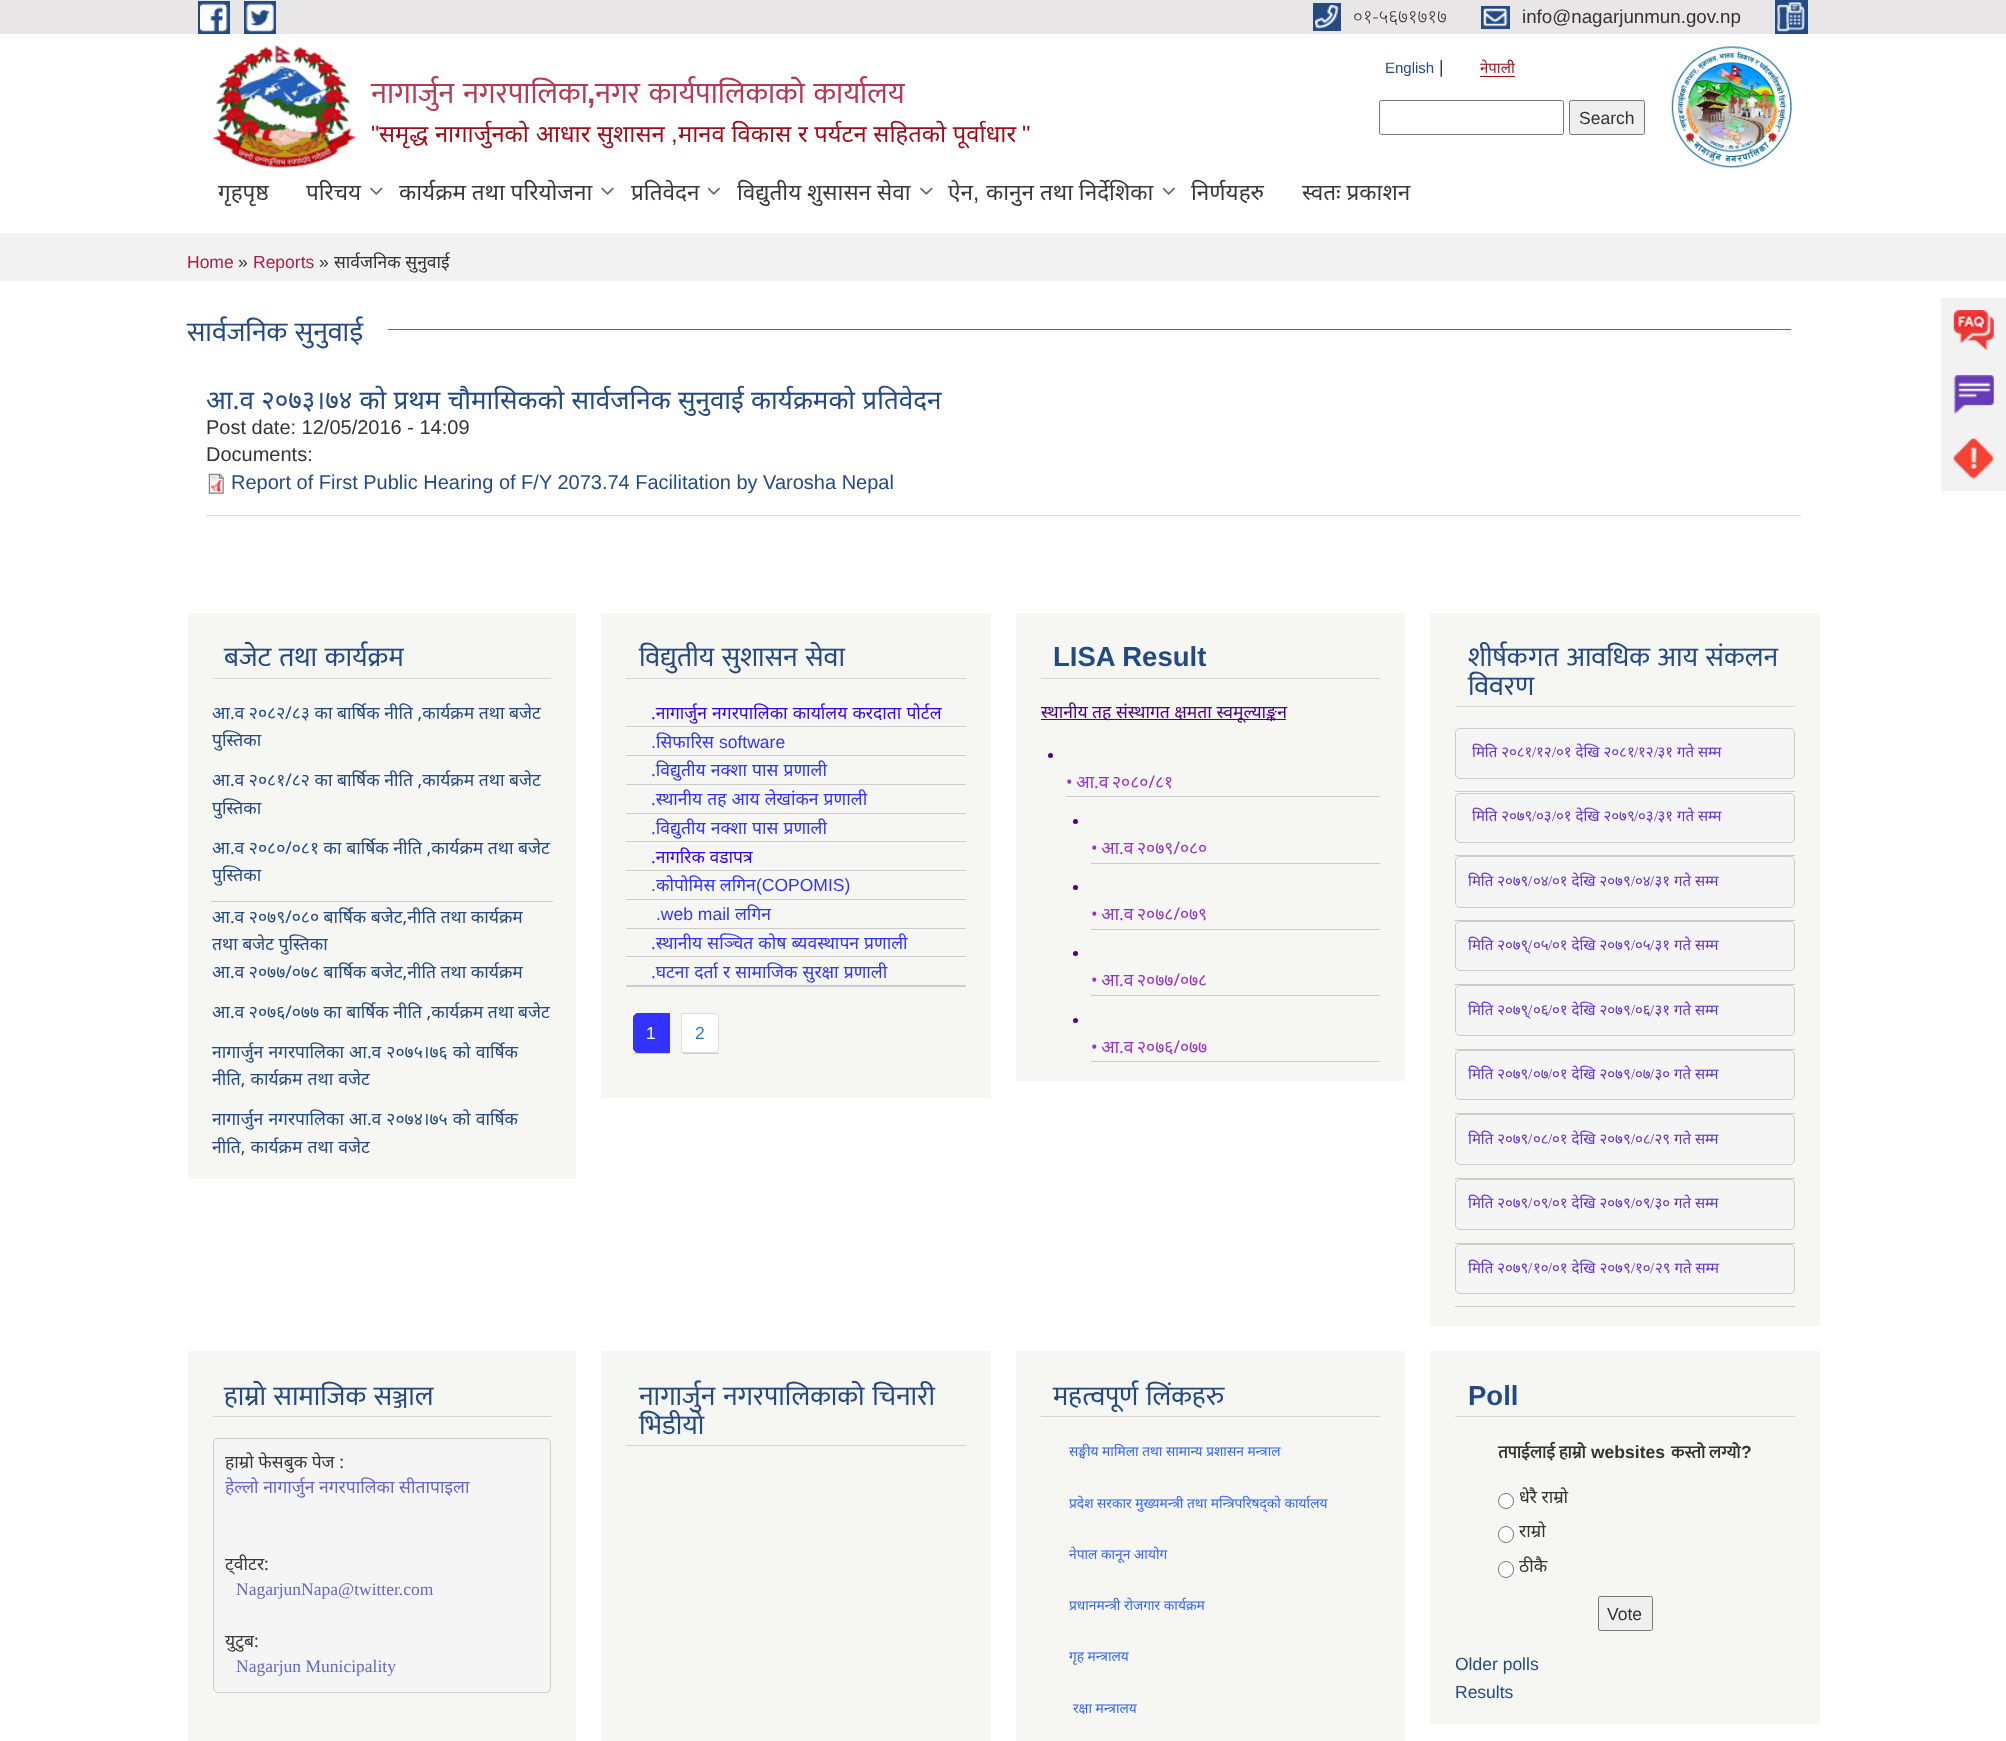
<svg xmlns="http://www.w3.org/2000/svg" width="2006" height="1741">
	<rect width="100%" height="100%" fill="#FFFFFF" />
	<rect x="0" y="0" width="2006" height="34" fill="#E8E6E6" />
	<rect x="198" y="1" width="32" height="33" fill="#234A83" />
	<rect x="244" y="1" width="32" height="33" fill="#234A83" />
	<image x="200" y="3" width="28" height="29" href="assets/img1.png" />
	<image x="246" y="3" width="28" height="29" href="assets/img2.png" />
	<rect x="1775" y="0" width="33" height="34" fill="#234A83" />
	<rect x="1313" y="3" width="28" height="28" fill="#234A83" />
	<image x="1315" y="5" width="24" height="24" href="assets/img3.png" />
	<text x="1353" y="23" font-family="Noto Sans" font-size="18.75" font-weight="300" fill="#333333">०१-५६७१७१७</text>
	<rect x="1481" y="6" width="29" height="23" fill="#234A83" />
	<image x="1483" y="8" width="25" height="19" href="assets/img4.png" />
	<text x="1522" y="23" font-family="Liberation Sans" font-size="18.75" fill="#333333">info@nagarjunmun.gov.np</text>
	<image x="1777" y="2" width="28" height="30" href="assets/img5.png" />
	<image x="212" y="44" width="145" height="124" href="assets/img6.png" />
	<text x="371" y="103" word-spacing="2" font-family="Mukta" font-size="30" fill="#B83955">नागार्जुन नगरपालिका</text>
	<text x="587" y="103" font-family="Liberation Sans" font-size="30" font-weight="700" fill="#B83955">,</text>
	<text x="595" y="103" word-spacing="2" font-family="Mukta" font-size="30" fill="#B83955">नगर कार्यपालिकाको कार्यालय</text>
	<text x="371" y="142" font-family="Liberation Sans" font-size="23.75" fill="#9E0C18">"</text>
	<g font-family="Noto Sans" font-size="23.75" fill="#9E0C18">
		<text x="379" y="142" word-spacing="0.5">समृद्ध नागार्जुनको आधार सुशासन</text>
		<text x="678" y="142" word-spacing="0.5">मानव विकास र पर्यटन सहितको पूर्वाधार</text>
	</g>
	<g font-family="Liberation Sans" font-size="23.75" fill="#9E0C18">
		<text x="1022" y="142">"</text>
		<text x="671" y="142">,</text>
	</g>
	<text x="1385" y="73" font-family="Liberation Sans" font-size="15" fill="#234A83">English</text>
	<text x="1439" y="73" font-family="Liberation Sans" font-size="17.5" fill="#333333">|</text>
	<text x="1480" y="73" font-family="Noto Sans" font-size="15" fill="#9E0C18">नेपाली</text>
	<rect x="1480" y="76" width="35" height="1" fill="#9E0C18" />
	<rect x="1379.5" y="100.5" width="184" height="34" rx="2" fill="none" stroke="#767676" />
	<rect x="1569.5" y="100.5" width="75" height="34" rx="2" fill="#EFEFEF" stroke="#767676" />
	<text x="1579" y="124" font-family="Liberation Sans" font-size="17.5" fill="#333333">Search</text>
	<image x="1671" y="46" width="121" height="122" href="assets/img7.png" />
	<g font-family="Noto Sans" font-size="22.5" fill="#393939">
		<text x="218" y="200">गृहपृष्ठ</text>
		<text x="306" y="200">परिचय</text>
	</g>
	<image x="370" y="187" width="13" height="8" href="assets/img8.png" />
	<text x="399" y="200" font-family="Noto Sans" font-size="22.5" fill="#393939">कार्यक्रम तथा परियोजना</text>
	<image x="601" y="187" width="13" height="8" href="assets/img9.png" />
	<text x="631" y="200" font-family="Noto Sans" font-size="22.5" fill="#393939">प्रतिवेदन</text>
	<image x="708" y="187" width="12" height="8" href="assets/img10.png" />
	<text x="737" y="200" font-family="Noto Sans" font-size="22.5" fill="#393939">विद्युतीय शुसासन सेवा</text>
	<image x="920" y="187" width="13" height="8" href="assets/img8.png" />
	<text x="948" y="200" font-family="Noto Sans" font-size="22.5" fill="#393939">ऐन</text>
	<text x="973" y="200" font-family="Liberation Sans" font-size="22.5" fill="#393939">,</text>
	<text x="986" y="200" font-family="Noto Sans" font-size="22.5" fill="#393939">कानुन तथा निर्देशिका</text>
	<image x="1163" y="187" width="12" height="8" href="assets/img10.png" />
	<g font-family="Noto Sans" font-size="22.5" fill="#393939">
		<text x="1191" y="200">निर्णयहरु</text>
		<text x="1302" y="200">स्वतः प्रकाशन</text>
	</g>
	<rect x="0" y="233" width="2006" height="48" fill="#F2F2F2" />
	<text x="187" y="268" font-family="Liberation Sans" font-size="17.5" fill="#B21C42">Home</text>
	<text x="238" y="268" font-family="Liberation Sans" font-size="17.5" fill="#333333">»</text>
	<text x="253" y="268" font-family="Liberation Sans" font-size="17.5" fill="#B21C42">Reports</text>
	<text x="319" y="268" font-family="Liberation Sans" font-size="17.5" fill="#333333">»</text>
	<text x="334" y="268" font-family="Noto Sans" font-size="17.5" fill="#333333">सार्वजनिक सुनुवाई</text>
	<text x="187" y="341" word-spacing="1.5" font-family="Mukta" font-size="27.5" fill="#234A83">सार्वजनिक सुनुवाई</text>
	<rect x="388" y="329" width="1403" height="1" fill="#376FC2" />
	<rect x="206" y="515" width="1595" height="1" fill="#DADDD8" />
	<text x="206" y="409" word-spacing="0.5" font-family="Noto Sans" font-size="26" fill="#234A83">आ.व २०७३।७४ को प्रथम चौमासिकको सार्वजनिक सुनुवाई कार्यक्रमको प्रतिवेदन</text>
	<g font-family="Liberation Sans" font-size="20" fill="#333333">
		<text x="206" y="434">Post date: 12/05/2016 - 14:09</text>
		<text x="206" y="461">Documents:</text>
	</g>
	<image x="208" y="473" width="16" height="21" href="assets/img11.png" />
	<text x="231" y="489" font-family="Liberation Sans" font-size="20" fill="#234A83">Report of First Public Hearing of F/Y 2073.74 Facilitation by Varosha Nepal</text>
	<rect x="188" y="613" width="388" height="566" fill="#F6F6F2" />
	<rect x="213" y="678" width="338" height="1" fill="#D6D6D6" />
	<text x="224" y="666" word-spacing="1.5" font-family="Mukta" font-size="27.5" fill="#234A83">बजेट तथा कार्यक्रम</text>
	<g font-family="Noto Sans" font-size="17.5" fill="#234A83">
		<text x="212" y="719">आ.व २०८२/८३ का बार्षिक नीति ,कार्यक्रम तथा बजेट</text>
		<text x="212" y="746">पुस्तिका</text>
		<text x="212" y="786">आ.व २०८१/८२ का बार्षिक नीति ,कार्यक्रम तथा बजेट</text>
		<text x="212" y="814">पुस्तिका</text>
		<text x="212" y="854">आ.व २०८०/०८१ का बार्षिक नीति ,कार्यक्रम तथा बजेट</text>
		<text x="212" y="881">पुस्तिका</text>
	</g>
	<rect x="211" y="901" width="342" height="1" fill="#CCCCCC" />
	<g font-family="Noto Sans" font-size="17.5" fill="#234A83">
		<text x="212" y="923">आ.व २०७९/०८० बार्षिक बजेट,नीति तथा कार्यक्रम</text>
		<text x="212" y="950">तथा बजेट पुस्तिका</text>
		<text x="212" y="978">आ.व २०७७/०७८ बार्षिक बजेट,नीति तथा कार्यक्रम</text>
		<text x="212" y="1018">आ.व २०७६/०७७ का बार्षिक नीति ,कार्यक्रम तथा बजेट</text>
		<text x="212" y="1058" word-spacing="0.5">नागार्जुन नगरपालिका आ.व २०७५।७६ को वार्षिक</text>
		<text x="212" y="1085" word-spacing="0.5">नीति, कार्यक्रम तथा वजेट</text>
		<text x="212" y="1125" word-spacing="0.5">नागार्जुन नगरपालिका आ.व २०७४।७५ को वार्षिक</text>
		<text x="212" y="1153" word-spacing="0.5">नीति, कार्यक्रम तथा वजेट</text>
	</g>
	<rect x="601" y="613" width="390" height="485" fill="#F6F6F2" />
	<rect x="626" y="678" width="340" height="1" fill="#D6D6D6" />
	<text x="639" y="666" word-spacing="1.5" font-family="Mukta" font-size="27.5" fill="#234A83">विद्युतीय सुशासन सेवा</text>
	<rect x="626" y="726" width="340" height="1" fill="#CCCCCC" />
	<text x="651" y="719" word-spacing="0.5" font-family="Noto Sans" font-size="17.5" fill="#3300FF">.नागार्जुन नगरपालिका कार्यालय करदाता पोर्टल</text>
	<rect x="626" y="755" width="340" height="1" fill="#CCCCCC" />
	<text x="651" y="748" font-family="Liberation Sans" font-size="17.5" fill="#3333FF">.</text>
	<text x="656" y="748" font-family="Noto Sans" font-size="17.5" fill="#3333FF">सिफारिस</text>
	<text x="719" y="748" font-family="Liberation Sans" font-size="17.5" fill="#3333FF">software</text>
	<rect x="626" y="784" width="340" height="1" fill="#CCCCCC" />
	<text x="651" y="776" word-spacing="0.5" font-family="Noto Sans" font-size="17.5" fill="#3333FF">.विद्युतीय नक्शा पास प्रणाली</text>
	<rect x="626" y="813" width="340" height="1" fill="#CCCCCC" />
	<text x="651" y="805" word-spacing="0.5" font-family="Noto Sans" font-size="17.5" fill="#3333FF">.स्थानीय तह आय लेखांकन प्रणाली</text>
	<rect x="626" y="841" width="340" height="1" fill="#CCCCCC" />
	<text x="651" y="834" word-spacing="0.5" font-family="Noto Sans" font-size="17.5" fill="#3333FF">.विद्युतीय नक्शा पास प्रणाली</text>
	<rect x="626" y="870" width="340" height="1" fill="#CCCCCC" />
	<text x="651" y="863" font-family="Noto Sans" font-size="17.5" fill="#3300FF">.नागरिक वडापत्र</text>
	<rect x="626" y="899" width="340" height="1" fill="#CCCCCC" />
	<text x="651" y="891" font-family="Liberation Sans" font-size="17.5" fill="#3333FF">.</text>
	<text x="656" y="891" font-family="Noto Sans" font-size="17.5" fill="#3333FF">कोपोमिस लगिन</text>
	<text x="756" y="891" font-family="Liberation Sans" font-size="17.5" fill="#3333FF">(COPOMIS)</text>
	<rect x="626" y="928" width="340" height="1" fill="#CCCCCC" />
	<text x="656" y="920" font-family="Liberation Sans" font-size="17.5" fill="#3333FF">.web mail</text>
	<text x="735" y="920" font-family="Noto Sans" font-size="17.5" fill="#3333FF">लगिन</text>
	<rect x="626" y="956" width="340" height="1" fill="#CCCCCC" />
	<text x="651" y="949" word-spacing="0.5" font-family="Noto Sans" font-size="17.5" fill="#3333FF">.स्थानीय सञ्चित कोष ब्यवस्थापन प्रणाली</text>
	<rect x="626" y="985" width="340" height="2" fill="#CCCCCC" />
	<text x="651" y="978" word-spacing="0.5" font-family="Noto Sans" font-size="17.5" fill="#3333FF">.घटना दर्ता र सामाजिक सुरक्षा प्रणाली</text>
	<rect x="633" y="1053" width="37" height="1" fill="#CCCCCC" />
	<path d="M638 1013.5H669.5V1052.5H638C635.5 1052.5 633.5 1050.5 633.5 1048V1018C633.5 1015.5 635.5 1013.5 638 1013.5Z" fill="#3333FF" stroke="#3333FF" />
	<text x="646" y="1039" font-family="Liberation Sans" font-size="17.5" fill="#FFFFFF">1</text>
	<rect x="683" y="1053" width="36" height="1" fill="#CCCCCC" />
	<path d="M681.5 1013.5H714C716.5 1013.5 718.5 1015.5 718.5 1018V1048C718.5 1050.5 716.5 1052.5 714 1052.5H681.5Z" fill="#FFFFFF" stroke="#DDDDDD" />
	<text x="695" y="1039" font-family="Liberation Sans" font-size="17.5" fill="#337AB7">2</text>
	<rect x="1016" y="613" width="389" height="468" fill="#F6F6F2" />
	<rect x="1041" y="678" width="339" height="1" fill="#D6D6D6" />
	<text x="1053" y="666" font-family="Liberation Sans" font-size="27.5" font-weight="700" fill="#234A83">LISA Result</text>
	<rect x="1041" y="719" width="245" height="1" fill="#4B0082" />
	<text x="1041" y="718" font-family="Noto Sans" font-size="17.5" fill="#4B0082">स्थानीय तह संस्थागत क्षमता स्वमूल्याङ्कन</text>
	<rect x="1066" y="796" width="314" height="1" fill="#CCCCCC" />
	<circle cx="1050.5" cy="755.5" r="2.5" fill="#4B0082" />
	<text x="1066" y="788" word-spacing="-1" font-family="Noto Sans" font-size="17.5" fill="#9932CC">• आ.व २०८०/८१</text>
	<rect x="1091" y="863" width="289" height="1" fill="#CCCCCC" />
	<circle cx="1075.5" cy="821.5" r="2.5" fill="#4B0082" />
	<text x="1091" y="854" word-spacing="-1" font-family="Noto Sans" font-size="17.5" fill="#9932CC">• आ.व २०७९/०८०</text>
	<rect x="1091" y="929" width="289" height="1" fill="#CCCCCC" />
	<circle cx="1075.5" cy="887.5" r="2.5" fill="#4B0082" />
	<text x="1091" y="920" word-spacing="-1" font-family="Noto Sans" font-size="17.5" fill="#9932CC">• आ.व २०७८/०७९</text>
	<rect x="1091" y="995" width="289" height="1" fill="#CCCCCC" />
	<circle cx="1075.5" cy="953.5" r="2.5" fill="#4B0082" />
	<text x="1091" y="986" word-spacing="-1" font-family="Noto Sans" font-size="17.5" fill="#9932CC">• आ.व २०७७/०७८</text>
	<rect x="1091" y="1061" width="289" height="1" fill="#CCCCCC" />
	<circle cx="1075.5" cy="1020.5" r="2.5" fill="#4B0082" />
	<text x="1091" y="1053" word-spacing="-1" font-family="Noto Sans" font-size="17.5" fill="#9932CC">• आ.व २०७६/०७७</text>
	<rect x="1430" y="613" width="390" height="713" fill="#F6F6F2" />
	<rect x="1455" y="706" width="340" height="1" fill="#D6D6D6" />
	<g font-family="Mukta" font-size="27.5" fill="#234A83">
		<text x="1468" y="666" word-spacing="1.5">शीर्षकगत आवधिक आय संकलन</text>
		<text x="1468" y="695">विवरण</text>
	</g>
	<rect x="1455" y="791" width="340" height="1" fill="#CCCCCC" />
	<rect x="1455.5" y="728.5" width="339" height="50" rx="4.5" fill="#F5F5F5" stroke="#CCCCCC" />
	<text x="1472" y="757" font-family="Noto Sans" font-size="15" fill="#6633CC">मिति २०८१</text>
	<text x="1532" y="757" font-family="Liberation Serif" font-size="15" fill="#6633CC">/</text>
	<text x="1536" y="757" font-family="Noto Sans" font-size="15" fill="#6633CC">१२</text>
	<text x="1552" y="757" font-family="Liberation Serif" font-size="15" fill="#6633CC">/</text>
	<text x="1556" y="757" font-family="Noto Sans" font-size="15" fill="#6633CC">०१ देखि २०८१</text>
	<text x="1634" y="757" font-family="Liberation Serif" font-size="15" fill="#6633CC">/</text>
	<text x="1638" y="757" font-family="Noto Sans" font-size="15" fill="#6633CC">१२ ३१ गते सम्म</text>
	<text x="1654" y="757" font-family="Liberation Serif" font-size="15" fill="#6633CC">/</text>
	<rect x="1455" y="855" width="340" height="1" fill="#CCCCCC" />
	<rect x="1455.5" y="793.5" width="339" height="49" rx="4.5" fill="#F5F5F5" stroke="#CCCCCC" />
	<text x="1472" y="821" font-family="Noto Sans" font-size="15" fill="#6633CC">मिति २०७९</text>
	<text x="1532" y="821" font-family="Liberation Serif" font-size="15" fill="#6633CC">/</text>
	<text x="1536" y="821" font-family="Noto Sans" font-size="15" fill="#6633CC">०३</text>
	<text x="1552" y="821" font-family="Liberation Serif" font-size="15" fill="#6633CC">/</text>
	<text x="1556" y="821" font-family="Noto Sans" font-size="15" fill="#6633CC">०१ देखि २०७९</text>
	<text x="1634" y="821" font-family="Liberation Serif" font-size="15" fill="#6633CC">/</text>
	<text x="1638" y="821" font-family="Noto Sans" font-size="15" fill="#6633CC">०३ ३१ गते सम्म</text>
	<text x="1654" y="821" font-family="Liberation Serif" font-size="15" fill="#6633CC">/</text>
	<rect x="1455" y="920" width="340" height="1" fill="#CCCCCC" />
	<rect x="1455.5" y="856.5" width="339" height="51" rx="4.5" fill="#F5F5F5" stroke="#CCCCCC" />
	<text x="1468" y="886" font-family="Noto Sans" font-size="15" fill="#6633CC">मिति २०७९</text>
	<text x="1528" y="886" font-family="Liberation Serif" font-size="15" fill="#6633CC">/</text>
	<text x="1533" y="886" font-family="Noto Sans" font-size="15" fill="#6633CC">०४</text>
	<text x="1548" y="886" font-family="Liberation Serif" font-size="15" fill="#6633CC">/</text>
	<text x="1552" y="886" font-family="Noto Sans" font-size="15" fill="#6633CC">०१ देखि २०७९</text>
	<text x="1631" y="886" font-family="Liberation Serif" font-size="15" fill="#6633CC">/</text>
	<text x="1635" y="886" font-family="Noto Sans" font-size="15" fill="#6633CC">०४ ३१ गते सम्म</text>
	<text x="1650" y="886" font-family="Liberation Serif" font-size="15" fill="#6633CC">/</text>
	<rect x="1455" y="984" width="340" height="1" fill="#CCCCCC" />
	<rect x="1455.5" y="921.5" width="339" height="49" rx="4.5" fill="#F5F5F5" stroke="#CCCCCC" />
	<text x="1468" y="950" font-family="Noto Sans" font-size="15" fill="#6633CC">मिति २०७९्</text>
	<text x="1528" y="950" font-family="Liberation Serif" font-size="15" fill="#6633CC">/</text>
	<text x="1533" y="950" font-family="Noto Sans" font-size="15" fill="#6633CC">०५</text>
	<text x="1548" y="950" font-family="Liberation Serif" font-size="15" fill="#6633CC">/</text>
	<text x="1552" y="950" font-family="Noto Sans" font-size="15" fill="#6633CC">०१ देखि २०७९</text>
	<text x="1631" y="950" font-family="Liberation Serif" font-size="15" fill="#6633CC">/</text>
	<text x="1635" y="950" font-family="Noto Sans" font-size="15" fill="#6633CC">०५ ३१ गते सम्म</text>
	<text x="1650" y="950" font-family="Liberation Serif" font-size="15" fill="#6633CC">/</text>
	<rect x="1455" y="1049" width="340" height="1" fill="#CCCCCC" />
	<rect x="1455.5" y="985.5" width="339" height="50" rx="4.5" fill="#F5F5F5" stroke="#CCCCCC" />
	<text x="1468" y="1015" font-family="Noto Sans" font-size="15" fill="#6633CC">मिति २०७९्</text>
	<text x="1528" y="1015" font-family="Liberation Serif" font-size="15" fill="#6633CC">/</text>
	<text x="1533" y="1015" font-family="Noto Sans" font-size="15" fill="#6633CC">०६</text>
	<text x="1548" y="1015" font-family="Liberation Serif" font-size="15" fill="#6633CC">/</text>
	<text x="1552" y="1015" font-family="Noto Sans" font-size="15" fill="#6633CC">०१ देखि २०७९</text>
	<text x="1631" y="1015" font-family="Liberation Serif" font-size="15" fill="#6633CC">/</text>
	<text x="1635" y="1015" font-family="Noto Sans" font-size="15" fill="#6633CC">०६ ३१ गते सम्म</text>
	<text x="1650" y="1015" font-family="Liberation Serif" font-size="15" fill="#6633CC">/</text>
	<rect x="1455" y="1113" width="340" height="1" fill="#CCCCCC" />
	<rect x="1455.5" y="1050.5" width="339" height="49" rx="4.5" fill="#F5F5F5" stroke="#CCCCCC" />
	<text x="1468" y="1079" font-family="Noto Sans" font-size="15" fill="#6633CC">मिति २०७९</text>
	<text x="1528" y="1079" font-family="Liberation Serif" font-size="15" fill="#6633CC">/</text>
	<text x="1533" y="1079" font-family="Noto Sans" font-size="15" fill="#6633CC">०७</text>
	<text x="1548" y="1079" font-family="Liberation Serif" font-size="15" fill="#6633CC">/</text>
	<text x="1552" y="1079" font-family="Noto Sans" font-size="15" fill="#6633CC">०१ देखि २०७९</text>
	<text x="1631" y="1079" font-family="Liberation Serif" font-size="15" fill="#6633CC">/</text>
	<text x="1635" y="1079" font-family="Noto Sans" font-size="15" fill="#6633CC">०७ ३० गते सम्म</text>
	<text x="1650" y="1079" font-family="Liberation Serif" font-size="15" fill="#6633CC">/</text>
	<rect x="1455" y="1178" width="340" height="1" fill="#CCCCCC" />
	<rect x="1455.5" y="1114.5" width="339" height="50" rx="4.5" fill="#F5F5F5" stroke="#CCCCCC" />
	<text x="1468" y="1144" font-family="Noto Sans" font-size="15" fill="#6633CC">मिति २०७९</text>
	<text x="1528" y="1144" font-family="Liberation Serif" font-size="15" fill="#6633CC">/</text>
	<text x="1533" y="1144" font-family="Noto Sans" font-size="15" fill="#6633CC">०८</text>
	<text x="1548" y="1144" font-family="Liberation Serif" font-size="15" fill="#6633CC">/</text>
	<text x="1552" y="1144" font-family="Noto Sans" font-size="15" fill="#6633CC">०१ देखि २०७९</text>
	<text x="1631" y="1144" font-family="Liberation Serif" font-size="15" fill="#6633CC">/</text>
	<text x="1635" y="1144" font-family="Noto Sans" font-size="15" fill="#6633CC">०८ २९ गते सम्म</text>
	<text x="1650" y="1144" font-family="Liberation Serif" font-size="15" fill="#6633CC">/</text>
	<rect x="1455" y="1243" width="340" height="1" fill="#CCCCCC" />
	<rect x="1455.5" y="1179.5" width="339" height="50" rx="4.5" fill="#F5F5F5" stroke="#CCCCCC" />
	<text x="1468" y="1208" font-family="Noto Sans" font-size="15" fill="#6633CC">मिति २०७९</text>
	<text x="1528" y="1208" font-family="Liberation Serif" font-size="15" fill="#6633CC">/</text>
	<text x="1533" y="1208" font-family="Noto Sans" font-size="15" fill="#6633CC">०९</text>
	<text x="1548" y="1208" font-family="Liberation Serif" font-size="15" fill="#6633CC">/</text>
	<text x="1552" y="1208" font-family="Noto Sans" font-size="15" fill="#6633CC">०१ देखि २०७९</text>
	<text x="1631" y="1208" font-family="Liberation Serif" font-size="15" fill="#6633CC">/</text>
	<text x="1635" y="1208" font-family="Noto Sans" font-size="15" fill="#6633CC">०९ ३० गते सम्म</text>
	<text x="1650" y="1208" font-family="Liberation Serif" font-size="15" fill="#6633CC">/</text>
	<rect x="1455" y="1306" width="340" height="1" fill="#CCCCCC" />
	<rect x="1455.5" y="1244.5" width="339" height="49" rx="4.5" fill="#F5F5F5" stroke="#CCCCCC" />
	<text x="1468" y="1273" font-family="Noto Sans" font-size="15" fill="#6633CC">मिति २०७९</text>
	<text x="1528" y="1273" font-family="Liberation Serif" font-size="15" fill="#6633CC">/</text>
	<text x="1533" y="1273" font-family="Noto Sans" font-size="15" fill="#6633CC">१०</text>
	<text x="1548" y="1273" font-family="Liberation Serif" font-size="15" fill="#6633CC">/</text>
	<text x="1552" y="1273" font-family="Noto Sans" font-size="15" fill="#6633CC">०१ देखि २०७९</text>
	<text x="1631" y="1273" font-family="Liberation Serif" font-size="15" fill="#6633CC">/</text>
	<text x="1635" y="1273" font-family="Noto Sans" font-size="15" fill="#6633CC">१०</text>
	<text x="1650" y="1273" font-family="Liberation Serif" font-size="15" fill="#6633CC">/</text>
	<text x="1655" y="1273" font-family="Noto Sans" font-size="15" fill="#6633CC">२९ गते सम्म</text>
	<rect x="188" y="1351" width="388" height="390" fill="#F6F6F2" />
	<rect x="213" y="1416" width="338" height="1" fill="#D6D6D6" />
	<text x="224" y="1405" word-spacing="1.5" font-family="Mukta" font-size="27.5" fill="#234A83">हाम्रो सामाजिक सञ्जाल</text>
	<rect x="213.5" y="1438.5" width="337" height="254" rx="4.5" fill="#F5F5F5" stroke="#CCCCCC" />
	<text x="225" y="1468" font-family="Noto Sans" font-size="17.5" fill="#393939">हाम्रो फेसबुक पेज :</text>
	<text x="225" y="1493" font-family="Noto Sans" font-size="17.5" fill="#6666CC">हेल्लो नागार्जुन नगरपालिका सीतापाइला</text>
	<text x="225" y="1570" font-family="Noto Sans" font-size="17.5" fill="#393939">ट्वीटर:</text>
	<text x="236" y="1595" font-family="Liberation Serif" font-size="17.5" fill="#6666CC">NagarjunNapa@twitter.com</text>
	<text x="225" y="1647" font-family="Noto Sans" font-size="17.5" fill="#393939">युटुब:</text>
	<text x="236" y="1672" font-family="Liberation Serif" font-size="17.5" fill="#6666CC">Nagarjun Municipality</text>
	<rect x="601" y="1351" width="390" height="390" fill="#F6F6F2" />
	<rect x="626" y="1445" width="340" height="1" fill="#D6D6D6" />
	<g font-family="Mukta" font-size="27.5" fill="#234A83">
		<text x="639" y="1405" word-spacing="1.5">नागार्जुन नगरपालिकाको चिनारी</text>
		<text x="639" y="1434">भिडीयो</text>
	</g>
	<rect x="1016" y="1351" width="389" height="390" fill="#F6F6F2" />
	<rect x="1041" y="1416" width="339" height="1" fill="#D6D6D6" />
	<text x="1053" y="1405" word-spacing="1.5" font-family="Mukta" font-size="27.5" fill="#234A83">महत्वपूर्ण लिंकहरु</text>
	<g font-family="Noto Sans" font-size="13.75" fill="#3366FF">
		<text x="1069" y="1456">सङ्घीय मामिला तथा सामान्य प्रशासन मन्त्राल</text>
		<text x="1069" y="1508">प्रदेश सरकार मुख्यमन्त्री तथा मन्त्रिपरिषद्को कार्यालय</text>
		<text x="1069" y="1559">नेपाल कानून आयोग</text>
		<text x="1069" y="1610">प्रधानमन्त्री रोजगार कार्यक्रम</text>
		<text x="1069" y="1661">गृह मन्त्रालय</text>
		<text x="1073" y="1713">रक्षा मन्त्रालय</text>
	</g>
	<rect x="1430" y="1351" width="390" height="373" fill="#F6F6F2" />
	<rect x="1455" y="1416" width="340" height="1" fill="#D6D6D6" />
	<text x="1468" y="1405" font-family="Liberation Sans" font-size="27.5" font-weight="700" fill="#234A83">Poll</text>
	<text x="1498" y="1458" font-family="Mukta" font-size="17.5" font-weight="700" fill="#333333">तपाईलाई हाम्रो</text>
	<text x="1591" y="1458" font-family="Liberation Sans" font-size="17.5" font-weight="700" fill="#333333">websites</text>
	<text x="1671" y="1458" font-family="Mukta" font-size="17.5" font-weight="700" fill="#333333">कस्तो लग्यो</text>
	<text x="1741" y="1458" font-family="Liberation Sans" font-size="17.5" font-weight="700" fill="#333333">?</text>
	<circle cx="1506" cy="1501" r="7.5" fill="#FFFFFF" stroke="#767676" />
	<text x="1519" y="1503" font-family="Noto Sans" font-size="17.5" fill="#333333">धेरै राम्रो</text>
	<rect x="1498.5" y="1526.5" width="15" height="16" rx="7.5" fill="#FFFFFF" stroke="#767676" />
	<text x="1519" y="1537" font-family="Noto Sans" font-size="17.5" fill="#333333">राम्रो</text>
	<rect x="1498.5" y="1561.5" width="15" height="16" rx="7.5" fill="#FFFFFF" stroke="#767676" />
	<text x="1519" y="1572" font-family="Noto Sans" font-size="17.5" fill="#333333">ठीकै</text>
	<rect x="1598.5" y="1596.5" width="54" height="34" rx="2" fill="#EFEFEF" stroke="#767676" />
	<text x="1607" y="1620" font-family="Liberation Sans" font-size="17.5" fill="#333333">Vote</text>
	<g font-family="Liberation Sans" font-size="17.5" fill="#234A83">
		<text x="1455" y="1670">Older polls</text>
		<text x="1455" y="1698">Results</text>
	</g>
	<rect x="1941" y="298" width="65" height="193" fill="#F2F2F2" />
	<image x="1953" y="310" width="41" height="40" href="assets/img12.png" />
	<image x="1953" y="375" width="41" height="39" href="assets/img13.png" />
	<image x="1953" y="438" width="41" height="41" href="assets/img14.png" />
</svg>
